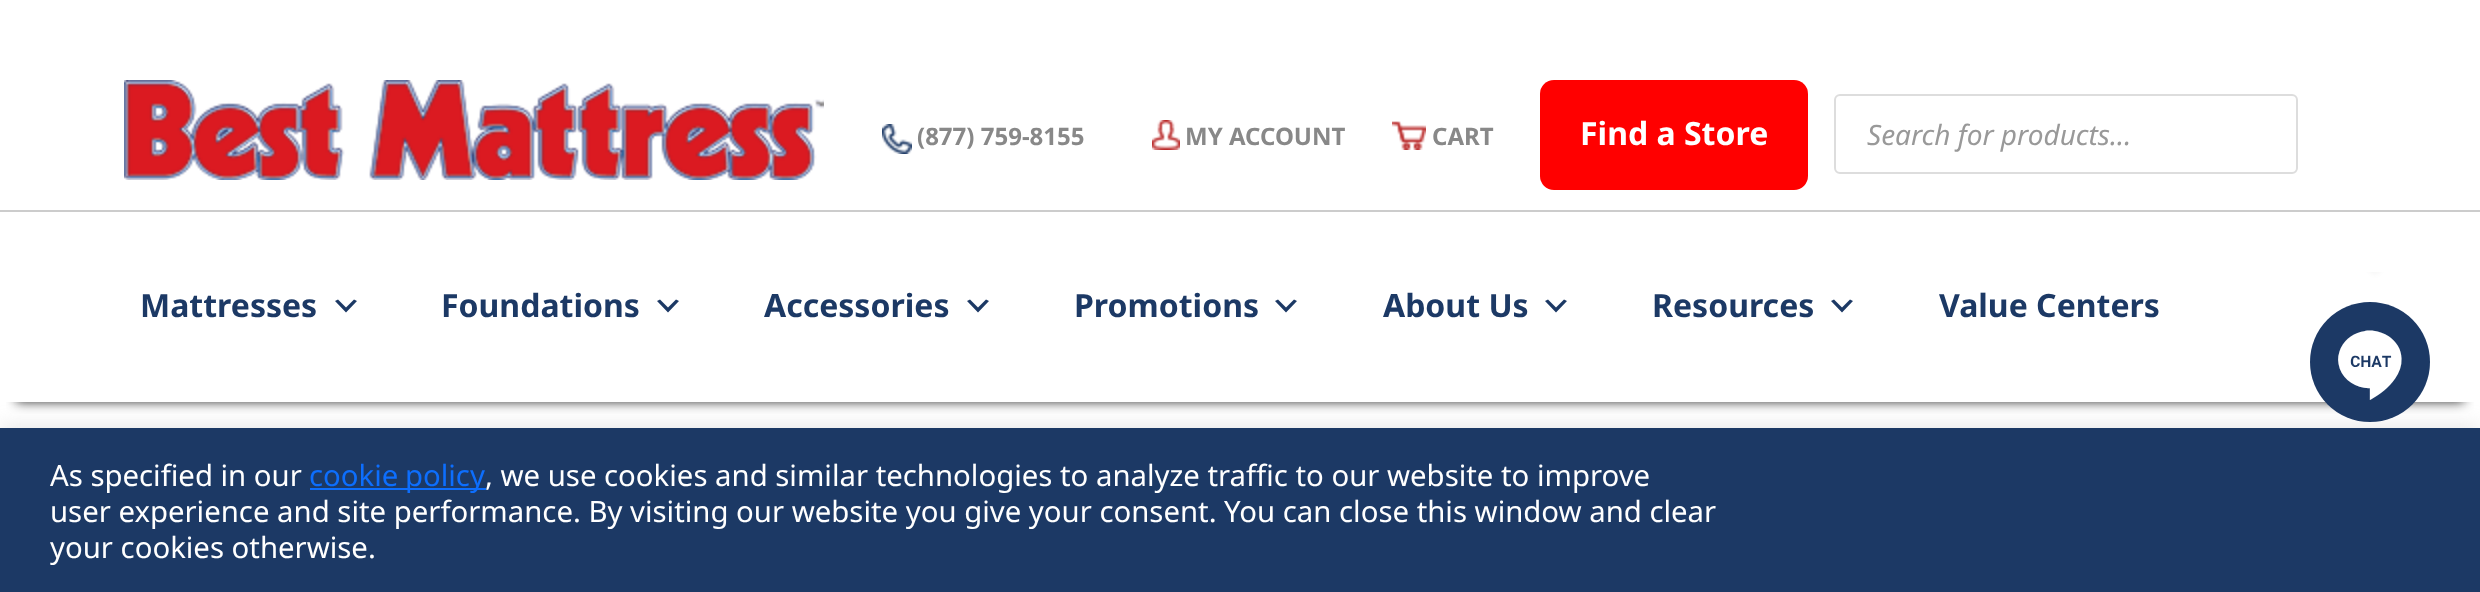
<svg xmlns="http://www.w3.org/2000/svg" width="2480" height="592">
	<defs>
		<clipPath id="clip1"><rect x="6" y="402" width="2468" height="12" /></clipPath>
	</defs>
	<rect width="100%" height="100%" fill="#FFFFFF" />
	<rect x="0" y="210" width="2480" height="2" fill="#CCCCCC" />
	<image x="124" y="80" width="700" height="100" href="assets/img1.png" />
	<image x="882" y="124" width="30" height="30" href="assets/img2.png" />
	<text x="917" y="145" font-family="Noto Sans" font-size="24" font-weight="700" fill="#888888">(877) 759-8155</text>
	<image x="1152" y="120" width="28" height="30" href="assets/img3.png" />
	<text x="1185" y="145" font-family="Noto Sans" font-size="24" font-weight="700" fill="#888888">MY ACCOUNT</text>
	<image x="1392" y="121" width="34" height="29" href="assets/img4.png" />
	<text x="1432" y="145" font-family="Noto Sans" font-size="24" font-weight="700" fill="#888888">CART</text>
	<rect x="1540" y="80" width="268" height="110" rx="14" fill="#FF0000" />
	<text x="1580" y="145" font-family="Noto Sans" font-size="32" font-weight="700" fill="#FFFFFF">Find a Store</text>
	<rect x="1835" y="95" width="462" height="78" rx="5" fill="none" stroke="#DDDDDD" stroke-width="2" />
	<text x="1867" y="145" font-family="Noto Sans" font-size="28" font-style="italic" fill="#999999">Search for products...</text>
	<g clip-path="url(#clip1)">
		<rect x="16" y="244" width="2448" height="158" fill="#333333" filter="blur(6px)" />
	</g>
	<text x="140" y="317" font-family="Noto Sans" font-size="32" font-weight="700" fill="#1C3965">Mattresses</text>
	<path d="M338 299.5L346 307.5L354 299.5L357 301L346 312.5L335 301Z" fill="#1C3965" />
	<text x="441" y="317" font-family="Noto Sans" font-size="32" font-weight="700" fill="#1C3965">Foundations</text>
	<path d="M660 299.5L668 307.5L676 299.5L679 301L668 312.5L657 301Z" fill="#1C3965" />
	<text x="764" y="317" font-family="Noto Sans" font-size="32" font-weight="700" fill="#1C3965">Accessories</text>
	<path d="M970 299.5L978 307.5L986 299.5L989 301L978 312.5L967 301Z" fill="#1C3965" />
	<text x="1074" y="317" font-family="Noto Sans" font-size="32" font-weight="700" fill="#1C3965">Promotions</text>
	<path d="M1278 299.5L1286 307.5L1294 299.5L1297 301L1286 312.5L1275 301Z" fill="#1C3965" />
	<text x="1383" y="317" font-family="Noto Sans" font-size="32" font-weight="700" fill="#1C3965">About Us</text>
	<path d="M1548 299.5L1556 307.5L1564 299.5L1567 301L1556 312.5L1545 301Z" fill="#1C3965" />
	<text x="1652" y="317" font-family="Noto Sans" font-size="32" font-weight="700" fill="#1C3965">Resources</text>
	<path d="M1834 299.5L1842 307.5L1850 299.5L1853 301L1842 312.5L1831 301Z" fill="#1C3965" />
	<text x="1939" y="317" font-family="Noto Sans" font-size="32" font-weight="700" fill="#1C3965">Value Centers</text>
	<rect x="0" y="426" width="2480" height="164" fill="#ACABAB" fill-opacity="0.3" filter="blur(10px)" />
	<image x="2310" y="272" width="120" height="150" href="assets/img5.png" />
	<rect x="0" y="428" width="2480" height="164" fill="#1C3965" />
	<text x="50" y="486" font-family="Noto Sans" font-size="29.33" fill="#FFFFFF">As specified in our</text>
	<rect x="310" y="488" width="176" height="2" fill="#0D6EFD" />
	<text x="309" y="486" word-spacing="-1" font-family="Noto Sans" font-size="29.33" fill="#0D6EFD">cookie policy</text>
	<g font-family="Noto Sans" font-size="29.33" fill="#FFFFFF">
		<text x="485" y="486">, we use cookies and similar technologies to analyze traffic to our website to improve</text>
		<text x="50" y="522">user experience and site performance. By visiting our website you give your consent. You can close this window and clear</text>
		<text x="50" y="558">your cookies otherwise.</text>
	</g>
</svg>
